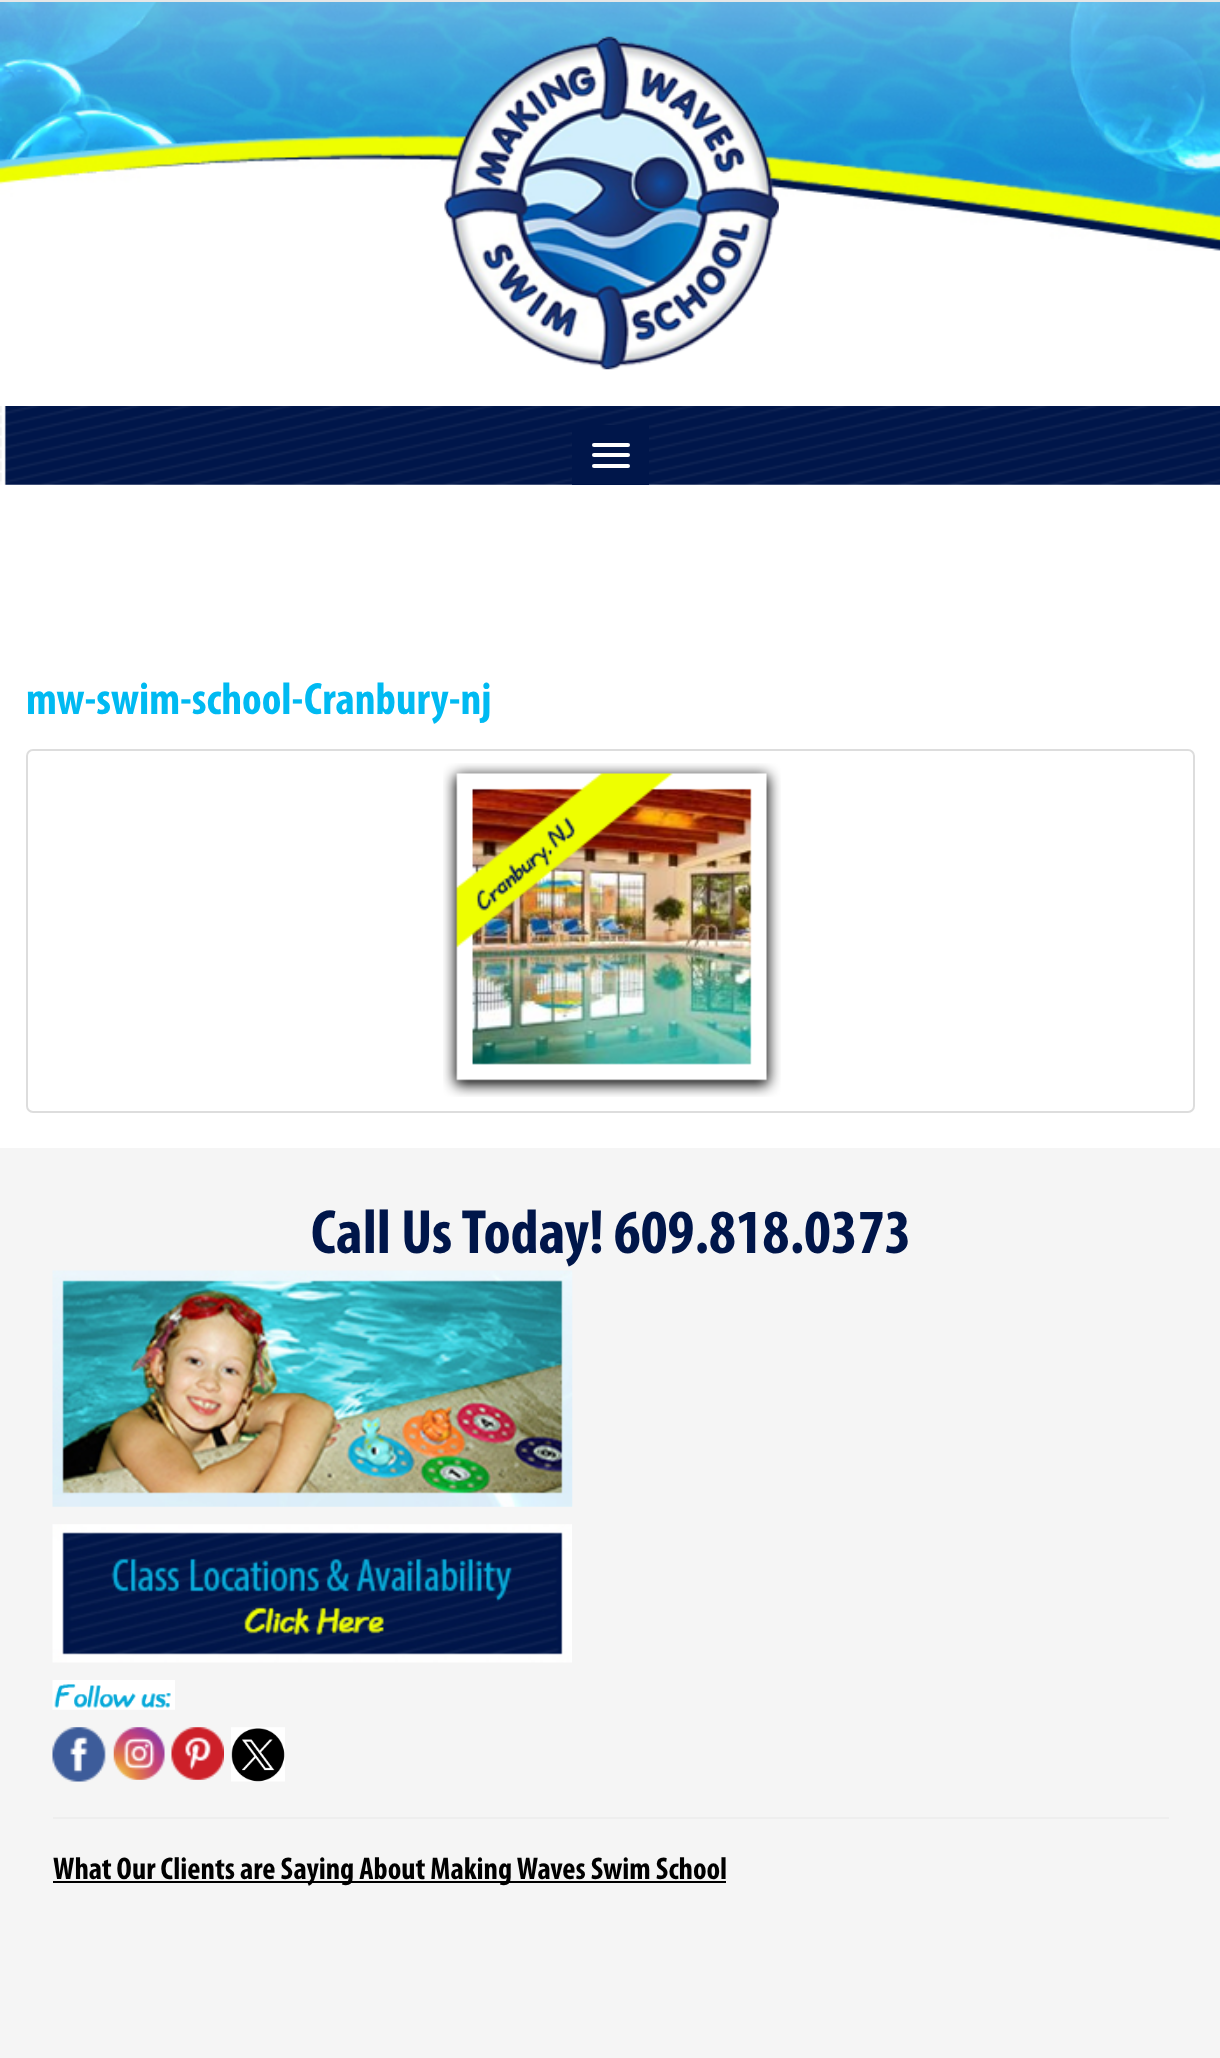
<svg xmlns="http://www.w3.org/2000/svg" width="1220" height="2058">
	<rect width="100%" height="100%" fill="#FFFFFF" />
	<image x="0" y="2" width="1220" height="249" href="assets/img1.png" />
	<rect x="0" y="0" width="1220" height="2" fill="#E7E7E7" />
	<image x="444" y="36" width="335" height="334" href="assets/img2.png" />
	<image x="0" y="406" width="1220" height="79" href="assets/img3.png" />
	<rect x="572" y="425" width="77" height="60" fill="#00164A" />
	<rect x="592" y="443" width="38" height="4" rx="2" fill="#FFFFFF" />
	<rect x="592" y="453" width="38" height="4" rx="2" fill="#FFFFFF" />
	<rect x="592" y="464" width="38" height="4" rx="2" fill="#FFFFFF" />
	<text x="26" y="714" font-family="Myriad" font-size="45.5" font-weight="700" fill="#00BAF2">mw-swim-school-Cranbury-nj</text>
	<rect x="27" y="750" width="1167" height="362" rx="6" fill="none" stroke="#DDDDDD" stroke-width="2" />
	<image x="443" y="763" width="338" height="334" href="assets/img4.png" />
	<rect x="0" y="1148" width="1220" height="910" fill="#F5F5F5" />
	<text x="311" y="1253" font-family="Myriad" font-size="63" font-weight="700" fill="#00164A">Call Us Today! 609.818.0373</text>
	<image x="52" y="1270" width="521" height="237" href="assets/img5.png" />
	<image x="52" y="1524" width="520" height="139" href="assets/img6.png" />
	<image x="52" y="1680" width="123" height="30" href="assets/img7.png" />
	<image x="52" y="1727" width="54" height="55" href="assets/img8.png" />
	<image x="113" y="1727" width="52" height="53" href="assets/img9.png" />
	<image x="171" y="1727" width="53" height="53" href="assets/img10.png" />
	<image x="231" y="1727" width="54" height="55" href="assets/img11.png" />
	<rect x="53" y="1817" width="1116" height="2" fill="#EEEEEE" />
	<rect x="53" y="1881" width="673" height="2" fill="#000000" />
	<text x="53" y="1879" font-family="Myriad" font-size="31.5" font-weight="700" fill="#000000">What Our Clients are Saying About Making Waves Swim School</text>
</svg>
